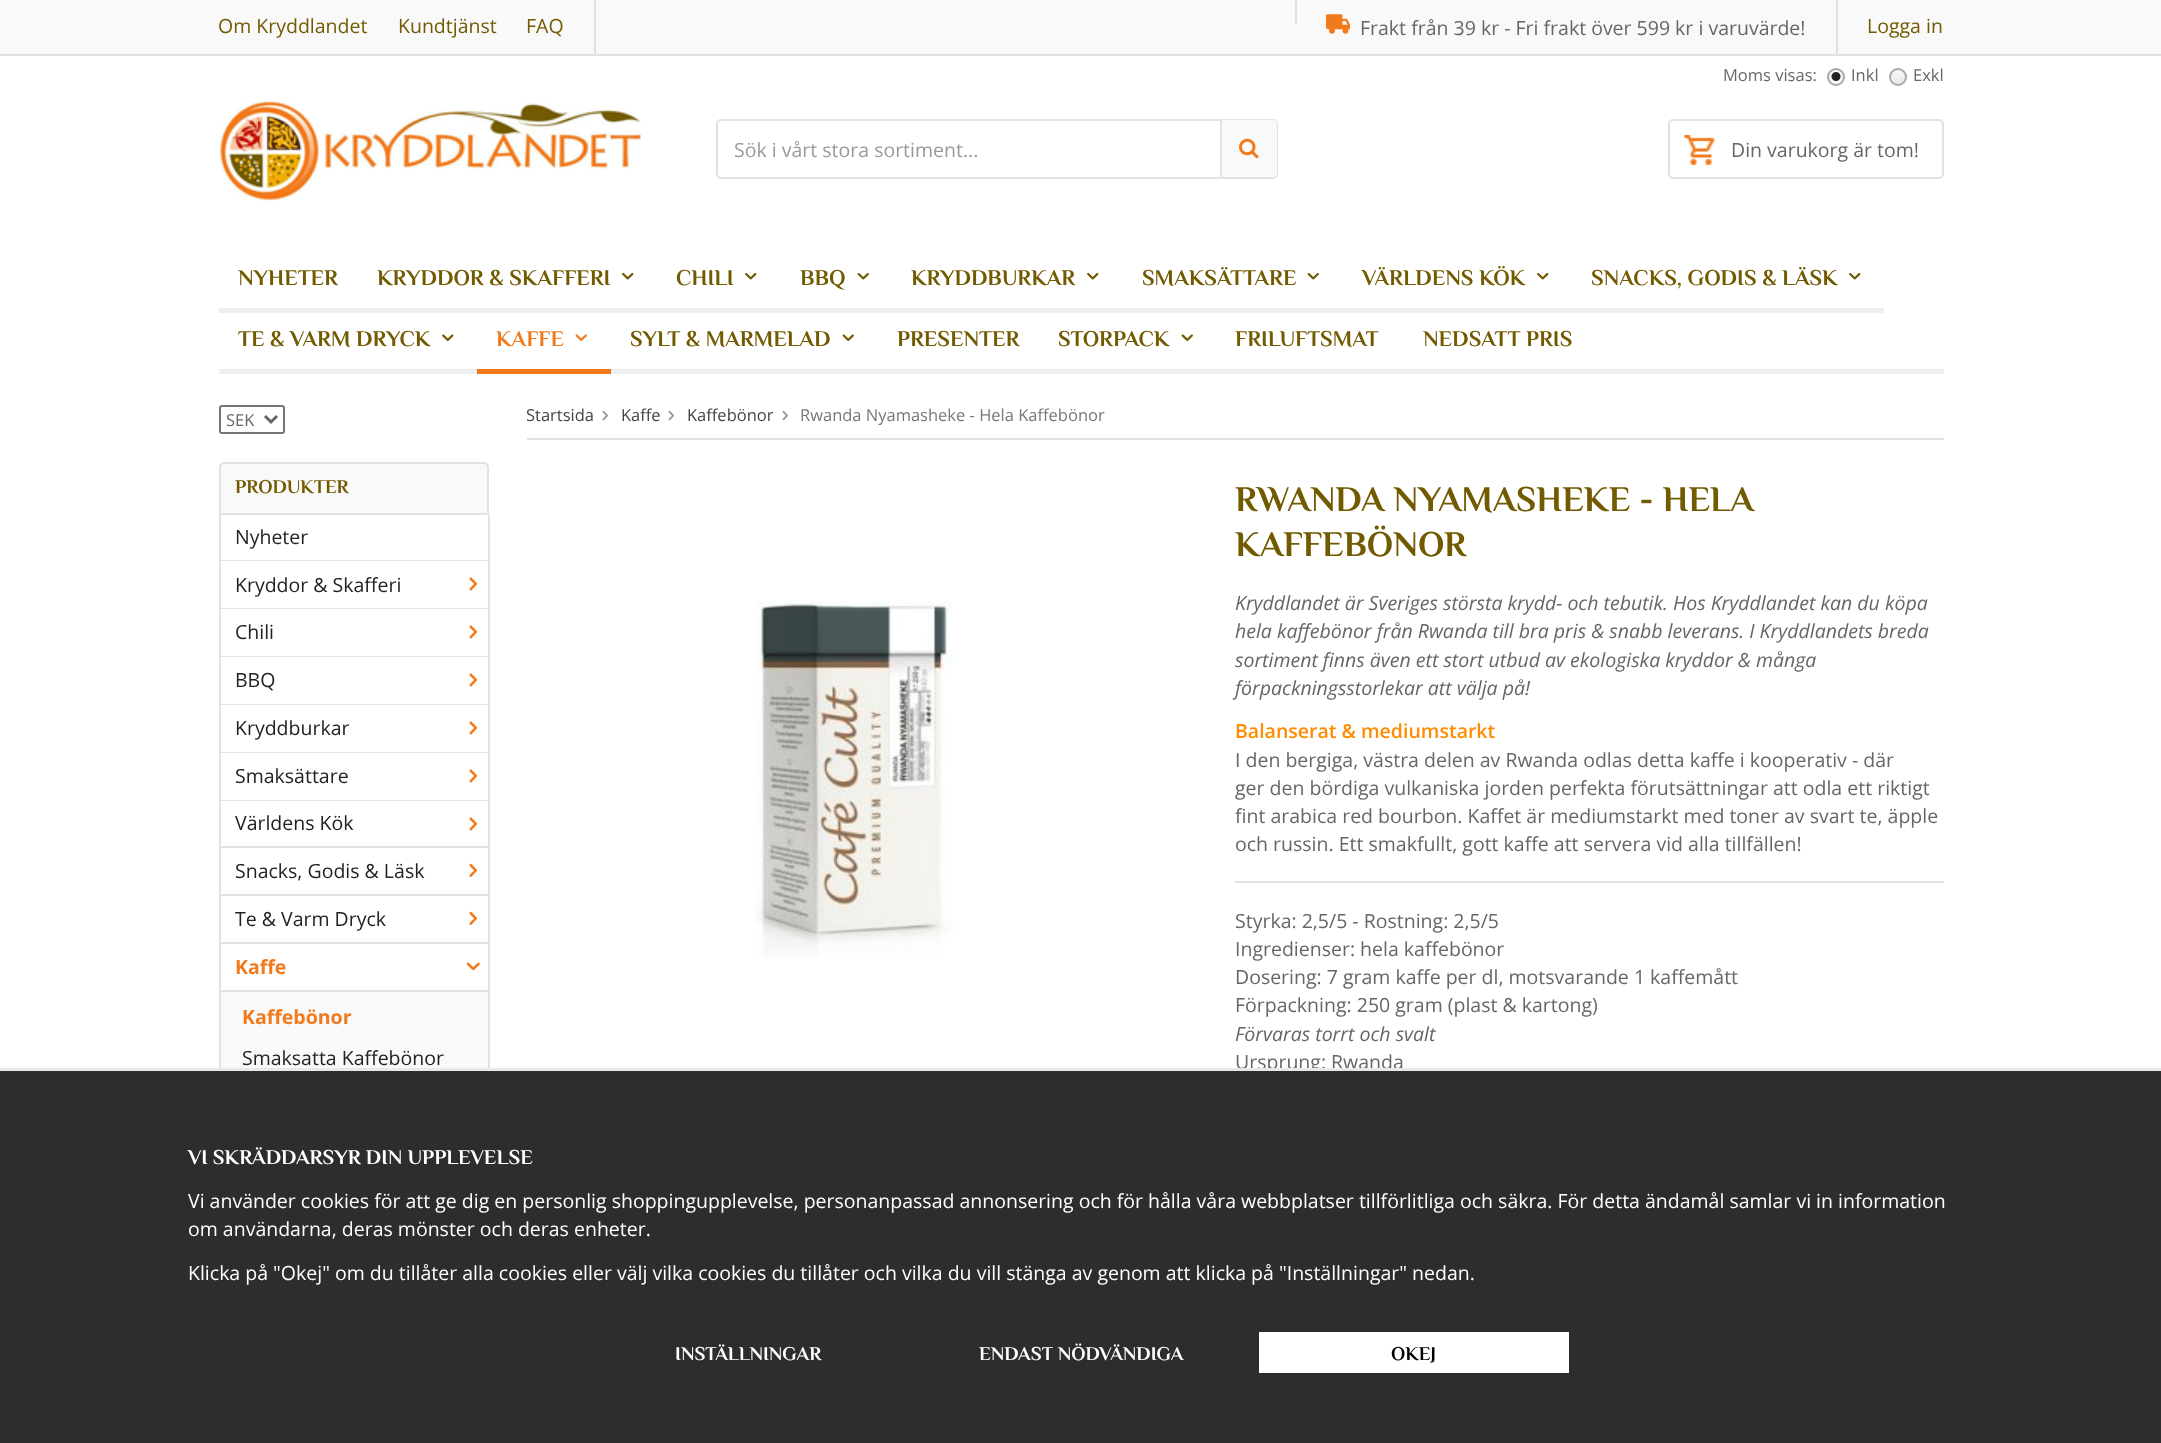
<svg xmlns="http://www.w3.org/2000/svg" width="2161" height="1443">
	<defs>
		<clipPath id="clip1"><rect x="1889" y="68" width="18" height="18" rx="9" /></clipPath>
		<linearGradient id="g1" gradientUnits="userSpaceOnUse" x1="1898" y1="69" x2="1898" y2="84"><stop offset="0" stop-color="#F9F9F9" /><stop offset="1" stop-color="#E9E9E9" /></linearGradient>
		<clipPath id="clip2"><rect x="227" y="407" width="33" height="25" /></clipPath>
		<clipPath id="clip3"><rect x="527" y="404" width="1417" height="913" /></clipPath>
	</defs>
	<rect width="100%" height="100%" fill="#FFFFFF" />
	<rect x="0" y="0" width="2161" height="54" fill="#F9F9F9" />
	<rect x="0" y="54" width="2161" height="2" fill="#E2E2E2" />
	<g font-family="Open Sans" font-size="19.5" fill="#725A01">
		<text x="218" y="33">Om Kryddlandet</text>
		<text x="398" y="33">Kundtjänst</text>
		<text x="526" y="33">FAQ</text>
	</g>
	<rect x="1836" y="0" width="2" height="54" fill="#E2E2E2" />
	<rect x="594" y="0" width="2" height="54" fill="#E2E2E2" />
	<rect x="1295" y="0" width="2" height="24" fill="#E2E2E2" />
	<image x="1326" y="14" width="24" height="20" href="assets/img1.png" />
	<text x="1360" y="35" font-family="Open Sans" font-size="19.5" fill="#666666">Frakt från 39 kr - Fri frakt över 599 kr i varuvärde!</text>
	<text x="1867" y="33" font-family="Open Sans" font-size="19.5" fill="#725A01">Logga in</text>
	<image x="220" y="101" width="421" height="103" href="assets/img2.png" />
	<rect x="717" y="120" width="560" height="58" rx="4" fill="none" stroke="#E2E2E2" stroke-width="2" />
	<text x="734" y="157" font-family="Open Sans" font-size="19.5" fill="#999999">Sök i vårt stora sortiment...</text>
	<path d="M1220 120H1274C1275.5 120 1277 121.5 1277 123V174C1277 175.5 1275.5 177 1274 177H1220Z" fill="#F9F9F9" />
	<rect x="1220" y="120" width="2" height="57" fill="#E2E2E2" />
	<image x="1239" y="138" width="20" height="21" href="assets/img3.png" />
	<text x="1723" y="81" font-family="Open Sans" font-size="16.5" fill="#666666">Moms visas:</text>
	<circle cx="1836" cy="77" r="9" fill="#F9F9F9" />
	<image x="1831" y="72" width="10" height="9" href="assets/img4.png" />
	<circle cx="1836" cy="77" r="8" fill="none" stroke="#A9A9A9" stroke-width="2" />
	<text x="1851" y="81" font-family="Open Sans" font-size="16.5" fill="#666666">Inkl</text>
	<g clip-path="url(#clip1)">
		<rect x="1889" y="69" width="18" height="15" fill="url(#g1)" />
	</g>
	<circle cx="1898" cy="77" r="8" fill="none" stroke="#A9A9A9" stroke-width="2" />
	<text x="1913" y="81" font-family="Open Sans" font-size="16.5" fill="#666666">Exkl</text>
	<rect x="1669" y="120" width="274" height="58" rx="4" fill="none" stroke="#E2E2E2" stroke-width="2" />
	<image x="1684" y="135" width="31" height="30" href="assets/img5.png" />
	<text x="1731" y="157" font-family="Open Sans" font-size="19.5" fill="#666666">Din varukorg är tom!</text>
	<rect x="219" y="369" width="1725" height="5" fill="#EEEEEE" />
	<rect x="219" y="308" width="1665" height="5" fill="#EEEEEE" />
	<g font-family="Philosopher" font-size="22.5" font-weight="700" fill="#725A01">
		<text x="238" y="285">NYHETER</text>
		<text x="377" y="285">KRYDDOR &amp; SKAFFERI</text>
	</g>
	<image x="622" y="272" width="12" height="8" href="assets/img6.png" />
	<text x="676" y="285" font-family="Philosopher" font-size="22.5" font-weight="700" fill="#725A01">CHILI</text>
	<image x="745" y="272" width="12" height="8" href="assets/img6.png" />
	<text x="800" y="285" font-family="Philosopher" font-size="22.5" font-weight="700" fill="#725A01">BBQ</text>
	<image x="857" y="272" width="12" height="8" href="assets/img7.png" />
	<text x="911" y="285" font-family="Philosopher" font-size="22.5" font-weight="700" fill="#725A01">KRYDDBURKAR</text>
	<image x="1087" y="272" width="12" height="8" href="assets/img6.png" />
	<text x="1142" y="285" font-family="Philosopher" font-size="22.5" font-weight="700" fill="#725A01">SMAKSÄTTARE</text>
	<image x="1307" y="272" width="12" height="8" href="assets/img7.png" />
	<text x="1362" y="285" font-family="Philosopher" font-size="22.5" font-weight="700" fill="#725A01">VÄRLDENS KÖK</text>
	<image x="1537" y="272" width="12" height="8" href="assets/img6.png" />
	<text x="1591" y="285" font-family="Philosopher" font-size="22.5" font-weight="700" fill="#725A01">SNACKS, GODIS &amp; LÄSK</text>
	<image x="1849" y="272" width="12" height="8" href="assets/img6.png" />
	<text x="238" y="346" font-family="Philosopher" font-size="22.5" font-weight="700" fill="#725A01">TE &amp; VARM DRYCK</text>
	<image x="442" y="334" width="12" height="7" href="assets/img8.png" />
	<rect x="477" y="369" width="134" height="5" fill="#F17A1C" />
	<text x="496" y="346" font-family="Philosopher" font-size="22.5" font-weight="700" fill="#F17A1C">KAFFE</text>
	<image x="575" y="334" width="12" height="7" href="assets/img9.png" />
	<text x="630" y="346" font-family="Philosopher" font-size="22.5" font-weight="700" fill="#725A01">SYLT &amp; MARMELAD</text>
	<image x="842" y="334" width="12" height="7" href="assets/img10.png" />
	<g font-family="Philosopher" font-size="22.5" font-weight="700" fill="#725A01">
		<text x="897" y="346">PRESENTER</text>
		<text x="1058" y="346">STORPACK</text>
	</g>
	<image x="1181" y="334" width="12" height="7" href="assets/img10.png" />
	<g font-family="Philosopher" font-size="22.5" font-weight="700" fill="#725A01">
		<text x="1235" y="346">FRILUFTSMAT</text>
		<text x="1423" y="346">NEDSATT PRIS</text>
	</g>
	<rect x="220" y="406" width="64" height="27" rx="2" fill="none" stroke="#767676" stroke-width="2" />
	<path d="M265 416L271 422L277 416" fill="none" stroke="#666666" stroke-width="3" />
	<g clip-path="url(#clip2)">
		<text x="226" y="426" font-family="Open Sans" font-size="16.5" fill="#666666">SEK</text>
	</g>
	<path d="M224 463H484C486 463 488 465 488 467V514H220V467C220 465 222 463 224 463Z" fill="#F9F9F9" stroke="#E2E2E2" stroke-width="2" />
	<text x="235" y="493" font-family="Philosopher" font-size="19.5" font-weight="700" fill="#725A01">PRODUKTER</text>
	<rect x="488" y="515" width="2" height="553" fill="#E2E2E2" />
	<rect x="219" y="515" width="2" height="553" fill="#E2E2E2" />
	<rect x="221" y="560" width="267" height="1" fill="#E2E2E2" />
	<text x="235" y="544" font-family="Open Sans" font-size="19.5" fill="#222222">Nyheter</text>
	<rect x="221" y="608" width="267" height="1" fill="#E2E2E2" />
	<text x="235" y="592" font-family="Open Sans" font-size="19.5" fill="#222222">Kryddor &amp; Skafferi</text>
	<image x="469" y="577" width="9" height="14" href="assets/img11.png" />
	<rect x="221" y="656" width="267" height="1" fill="#E2E2E2" />
	<text x="235" y="639" font-family="Open Sans" font-size="19.5" fill="#222222">Chili</text>
	<image x="469" y="625" width="9" height="14" href="assets/img11.png" />
	<rect x="221" y="704" width="267" height="1" fill="#E2E2E2" />
	<text x="235" y="687" font-family="Open Sans" font-size="19.5" fill="#222222">BBQ</text>
	<image x="469" y="673" width="9" height="14" href="assets/img11.png" />
	<rect x="221" y="752" width="267" height="1" fill="#E2E2E2" />
	<text x="235" y="735" font-family="Open Sans" font-size="19.5" fill="#222222">Kryddburkar</text>
	<image x="469" y="721" width="9" height="14" href="assets/img11.png" />
	<rect x="221" y="800" width="267" height="1" fill="#E2E2E2" />
	<text x="235" y="783" font-family="Open Sans" font-size="19.5" fill="#222222">Smaksättare</text>
	<image x="469" y="769" width="9" height="14" href="assets/img11.png" />
	<rect x="221" y="846" width="267" height="2" fill="#E2E2E2" />
	<text x="235" y="830" font-family="Open Sans" font-size="19.5" fill="#222222">Världens Kök</text>
	<image x="469" y="817" width="9" height="14" href="assets/img11.png" />
	<rect x="221" y="894" width="267" height="2" fill="#E2E2E2" />
	<text x="235" y="878" font-family="Open Sans" font-size="19.5" fill="#222222">Snacks, Godis &amp; Läsk</text>
	<image x="469" y="863" width="9" height="14" href="assets/img12.png" />
	<rect x="221" y="942" width="267" height="2" fill="#E2E2E2" />
	<text x="235" y="926" font-family="Open Sans" font-size="19.5" fill="#222222">Te &amp; Varm Dryck</text>
	<image x="469" y="911" width="9" height="14" href="assets/img12.png" />
	<rect x="221" y="990" width="267" height="2" fill="#E2E2E2" />
	<text x="235" y="974" font-family="Open Sans" font-size="19.5" font-weight="700" fill="#F17A1C">Kaffe</text>
	<image x="466" y="962" width="14" height="9" href="assets/img13.png" />
	<rect x="221" y="992" width="267" height="76" fill="#F9F9F9" />
	<text x="242" y="1024" font-family="Open Sans" font-size="19.5" font-weight="700" fill="#F17A1C">Kaffebönor</text>
	<text x="242" y="1065" font-family="Open Sans" font-size="19.5" fill="#222222">Smaksatta Kaffebönor</text>
	<rect x="527" y="438" width="1417" height="2" fill="#E2E2E2" />
	<g clip-path="url(#clip3)">
		<text x="526" y="421" font-family="Open Sans" font-size="16.5" fill="#444444">Startsida</text>
	</g>
	<image x="602" y="410" width="6" height="11" href="assets/img14.png" />
	<text x="621" y="421" font-family="Open Sans" font-size="16.5" fill="#444444">Kaffe</text>
	<image x="668" y="410" width="6" height="11" href="assets/img14.png" />
	<text x="687" y="421" font-family="Open Sans" font-size="16.5" fill="#444444">Kaffebönor</text>
	<image x="782" y="410" width="6" height="11" href="assets/img14.png" />
	<text x="800" y="421" font-family="Open Sans" font-size="16.5" fill="#777777">Rwanda Nyamasheke - Hela Kaffebönor</text>
	<image x="755" y="601" width="198" height="357" href="assets/img15.png" />
	<g font-family="Philosopher" font-size="36" font-weight="700" fill="#725A01">
		<text x="1235" y="511">RWANDA NYAMASHEKE - HELA</text>
		<text x="1235" y="556">KAFFEBÖNOR</text>
	</g>
	<g font-family="Open Sans" font-size="19.5" font-style="italic" fill="#666666">
		<text x="1235" y="610">Kryddlandet är Sveriges största krydd- och tebutik. Hos Kryddlandet kan du köpa</text>
		<text x="1235" y="638">hela kaffebönor från Rwanda till bra pris &amp; snabb leverans. I Kryddlandets breda</text>
		<text x="1235" y="667">sortiment finns även ett stort utbud av ekologiska kryddor &amp; många</text>
		<text x="1235" y="695">förpackningsstorlekar att välja på!</text>
	</g>
	<text x="1235" y="738" font-family="Open Sans" font-size="19.5" font-weight="600" fill="#FF8C00">Balanserat &amp; mediumstarkt</text>
	<g font-family="Open Sans" font-size="19.5" fill="#666666">
		<text x="1235" y="767">I den bergiga, västra delen av Rwanda odlas detta kaffe i kooperativ - där</text>
		<text x="1235" y="795">ger den bördiga vulkaniska jorden perfekta förutsättningar att odla ett riktigt</text>
		<text x="1235" y="823">fint arabica red bourbon. Kaffet är mediumstarkt med toner av svart te, äpple</text>
		<text x="1235" y="851">och russin. Ett smakfullt, gott kaffe att servera vid alla tillfällen!</text>
	</g>
	<rect x="1235" y="881" width="709" height="2" fill="#E2E2E2" />
	<g font-family="Open Sans" font-size="19.5" fill="#666666">
		<text x="1235" y="928">Styrka: 2,5/5 - Rostning: 2,5/5</text>
		<text x="1235" y="956">Ingredienser: hela kaffebönor</text>
		<text x="1235" y="984">Dosering: 7 gram kaffe per dl, motsvarande 1 kaffemått</text>
		<text x="1235" y="1012">Förpackning: 250 gram (plast &amp; kartong)</text>
	</g>
	<text x="1235" y="1041" font-family="Open Sans" font-size="19.5" font-style="italic" fill="#666666">Förvaras torrt och svalt</text>
	<text x="1235" y="1069" font-family="Open Sans" font-size="19.5" fill="#666666">Ursprung: Rwanda</text>
	<rect x="0" y="1071" width="2161" height="372" fill="#2D2D2D" />
	<rect x="0" y="1068" width="2161" height="3" fill="#E9E9E9" />
	<text x="188" y="1164" font-family="Philosopher" font-size="21" font-weight="700" fill="#FFFFFF">VI SKRÄDDARSYR DIN UPPLEVELSE</text>
	<g font-family="Open Sans" font-size="19.5" fill="#FFFFFF">
		<text x="188" y="1208">Vi använder cookies för att ge dig en personlig shoppingupplevelse, personanpassad annonsering och för hålla våra webbplatser tillförlitliga och säkra. För detta ändamål samlar vi in information</text>
		<text x="188" y="1236">om användarna, deras mönster och deras enheter.</text>
		<text x="188" y="1280">Klicka på "Okej" om du tillåter alla cookies eller välj vilka cookies du tillåter och vilka du vill stänga av genom att klicka på "Inställningar" nedan.</text>
	</g>
	<g font-family="Philosopher" font-size="19.5" font-weight="700" fill="#FFFFFF">
		<text x="675" y="1360">INSTÄLLNINGAR</text>
		<text x="979" y="1360">ENDAST NÖDVÄNDIGA</text>
	</g>
	<rect x="1259" y="1332" width="310" height="41" fill="#FFFFFF" />
	<text x="1391" y="1360" font-family="Philosopher" font-size="19.5" font-weight="700" fill="#000000">OKEJ</text>
</svg>
